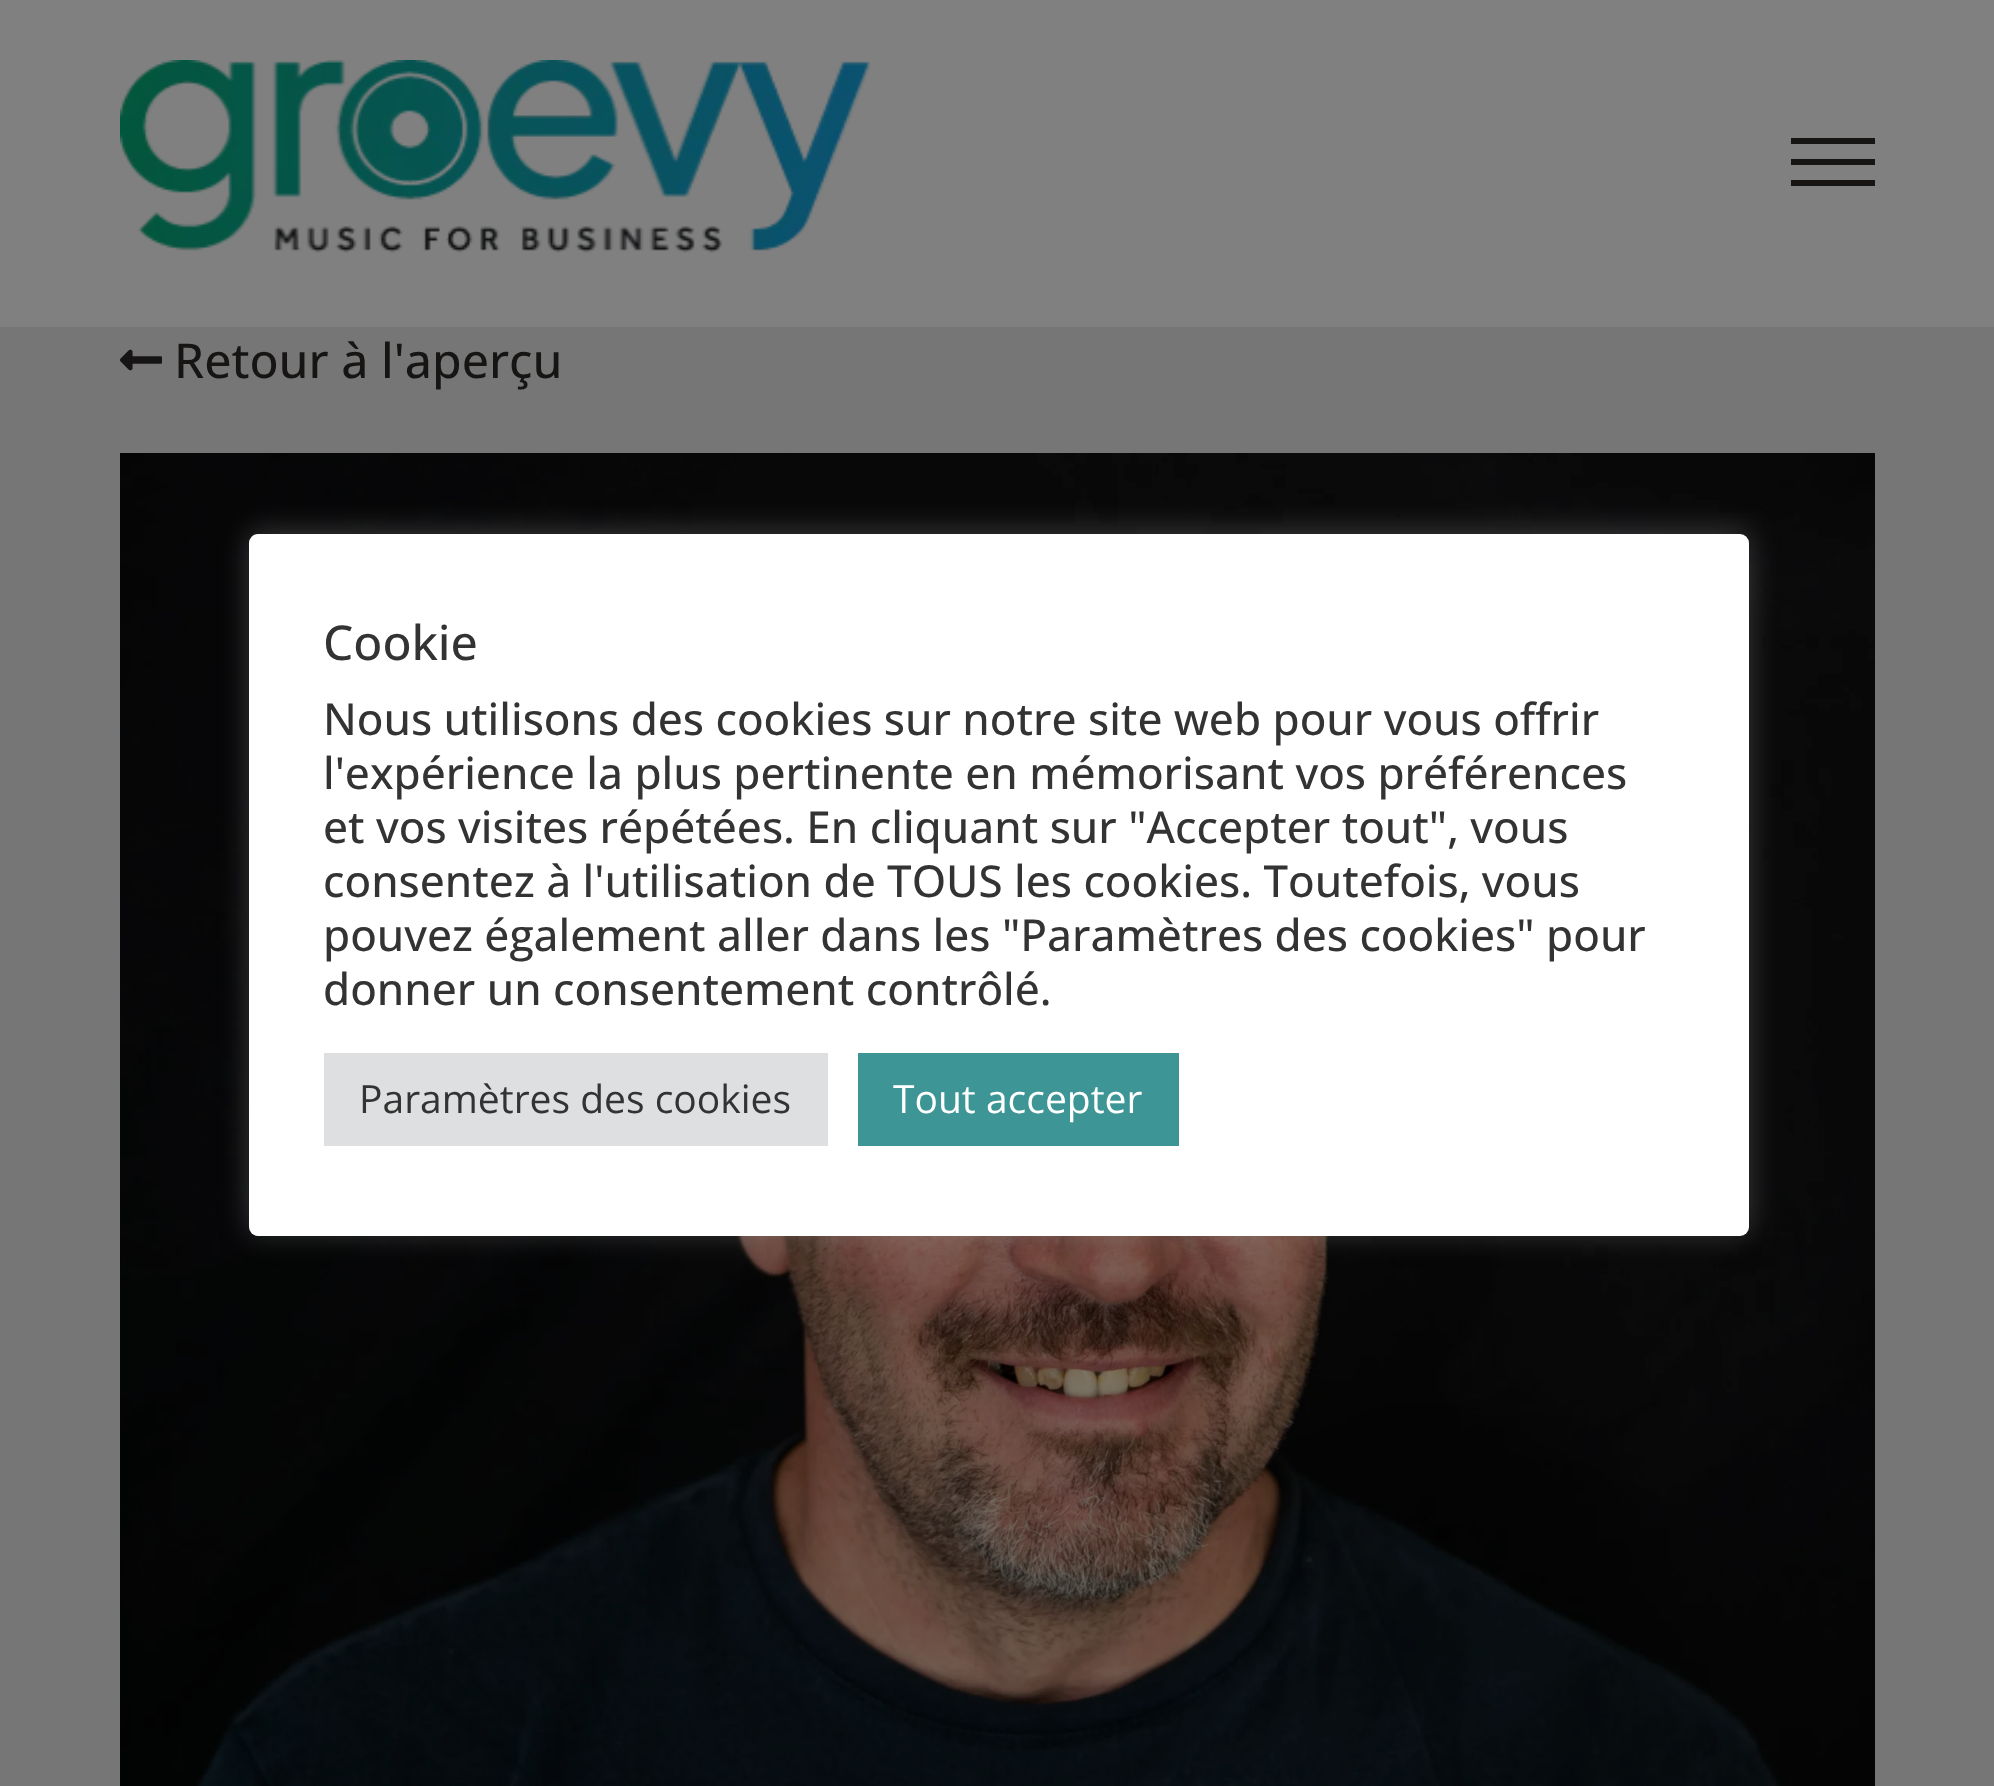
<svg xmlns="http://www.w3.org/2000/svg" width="1994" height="1786">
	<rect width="100%" height="100%" fill="#767676" />
	<rect x="0" y="0" width="1994" height="327" fill="#808080" />
	<image x="120" y="60" width="750" height="193" href="assets/img1.png" />
	<rect x="1791" y="138" width="84" height="6" fill="#161514" />
	<rect x="1791" y="159" width="84" height="6" fill="#161514" />
	<rect x="1791" y="180" width="84" height="6" fill="#161514" />
	<image x="120" y="349" width="42" height="22" href="assets/img2.png" />
	<text x="174" y="378" font-family="Open Sans" font-size="48" font-weight="500" fill="#161514">Retour à l'aperçu</text>
	<image x="120" y="453" width="1755" height="1333" href="assets/img3.png" />
	<rect x="249" y="531" width="1500" height="702" rx="9" fill="#ACABAB" fill-opacity="0.3" filter="blur(15px)" />
	<rect x="249" y="534" width="1500" height="702" rx="9" fill="#FFFFFF" />
	<text x="323" y="660" font-family="Open Sans" font-size="48" font-weight="500" fill="#333333">Cookie</text>
	<g font-family="Open Sans" font-size="44" font-weight="500" fill="#333333">
		<text x="323" y="735">Nous utilisons des cookies sur notre site web pour vous offrir</text>
		<text x="323" y="789">l'expérience la plus pertinente en mémorisant vos préférences</text>
		<text x="323" y="843">et vos visites répétées. En cliquant sur "Accepter tout", vous</text>
		<text x="323" y="897">consentez à l'utilisation de TOUS les cookies. Toutefois, vous</text>
		<text x="323" y="951">pouvez également aller dans les "Paramètres des cookies" pour</text>
		<text x="323" y="1005">donner un consentement contrôlé.</text>
	</g>
	<rect x="324" y="1053" width="504" height="93" fill="#DEDFE0" />
	<text x="359" y="1113" font-family="Open Sans" font-size="39" fill="#333333">Paramètres des cookies</text>
	<rect x="858" y="1053" width="321" height="93" fill="#3D9595" />
	<text x="893" y="1113" font-family="Open Sans" font-size="39" fill="#FFFFFF">Tout accepter</text>
</svg>
